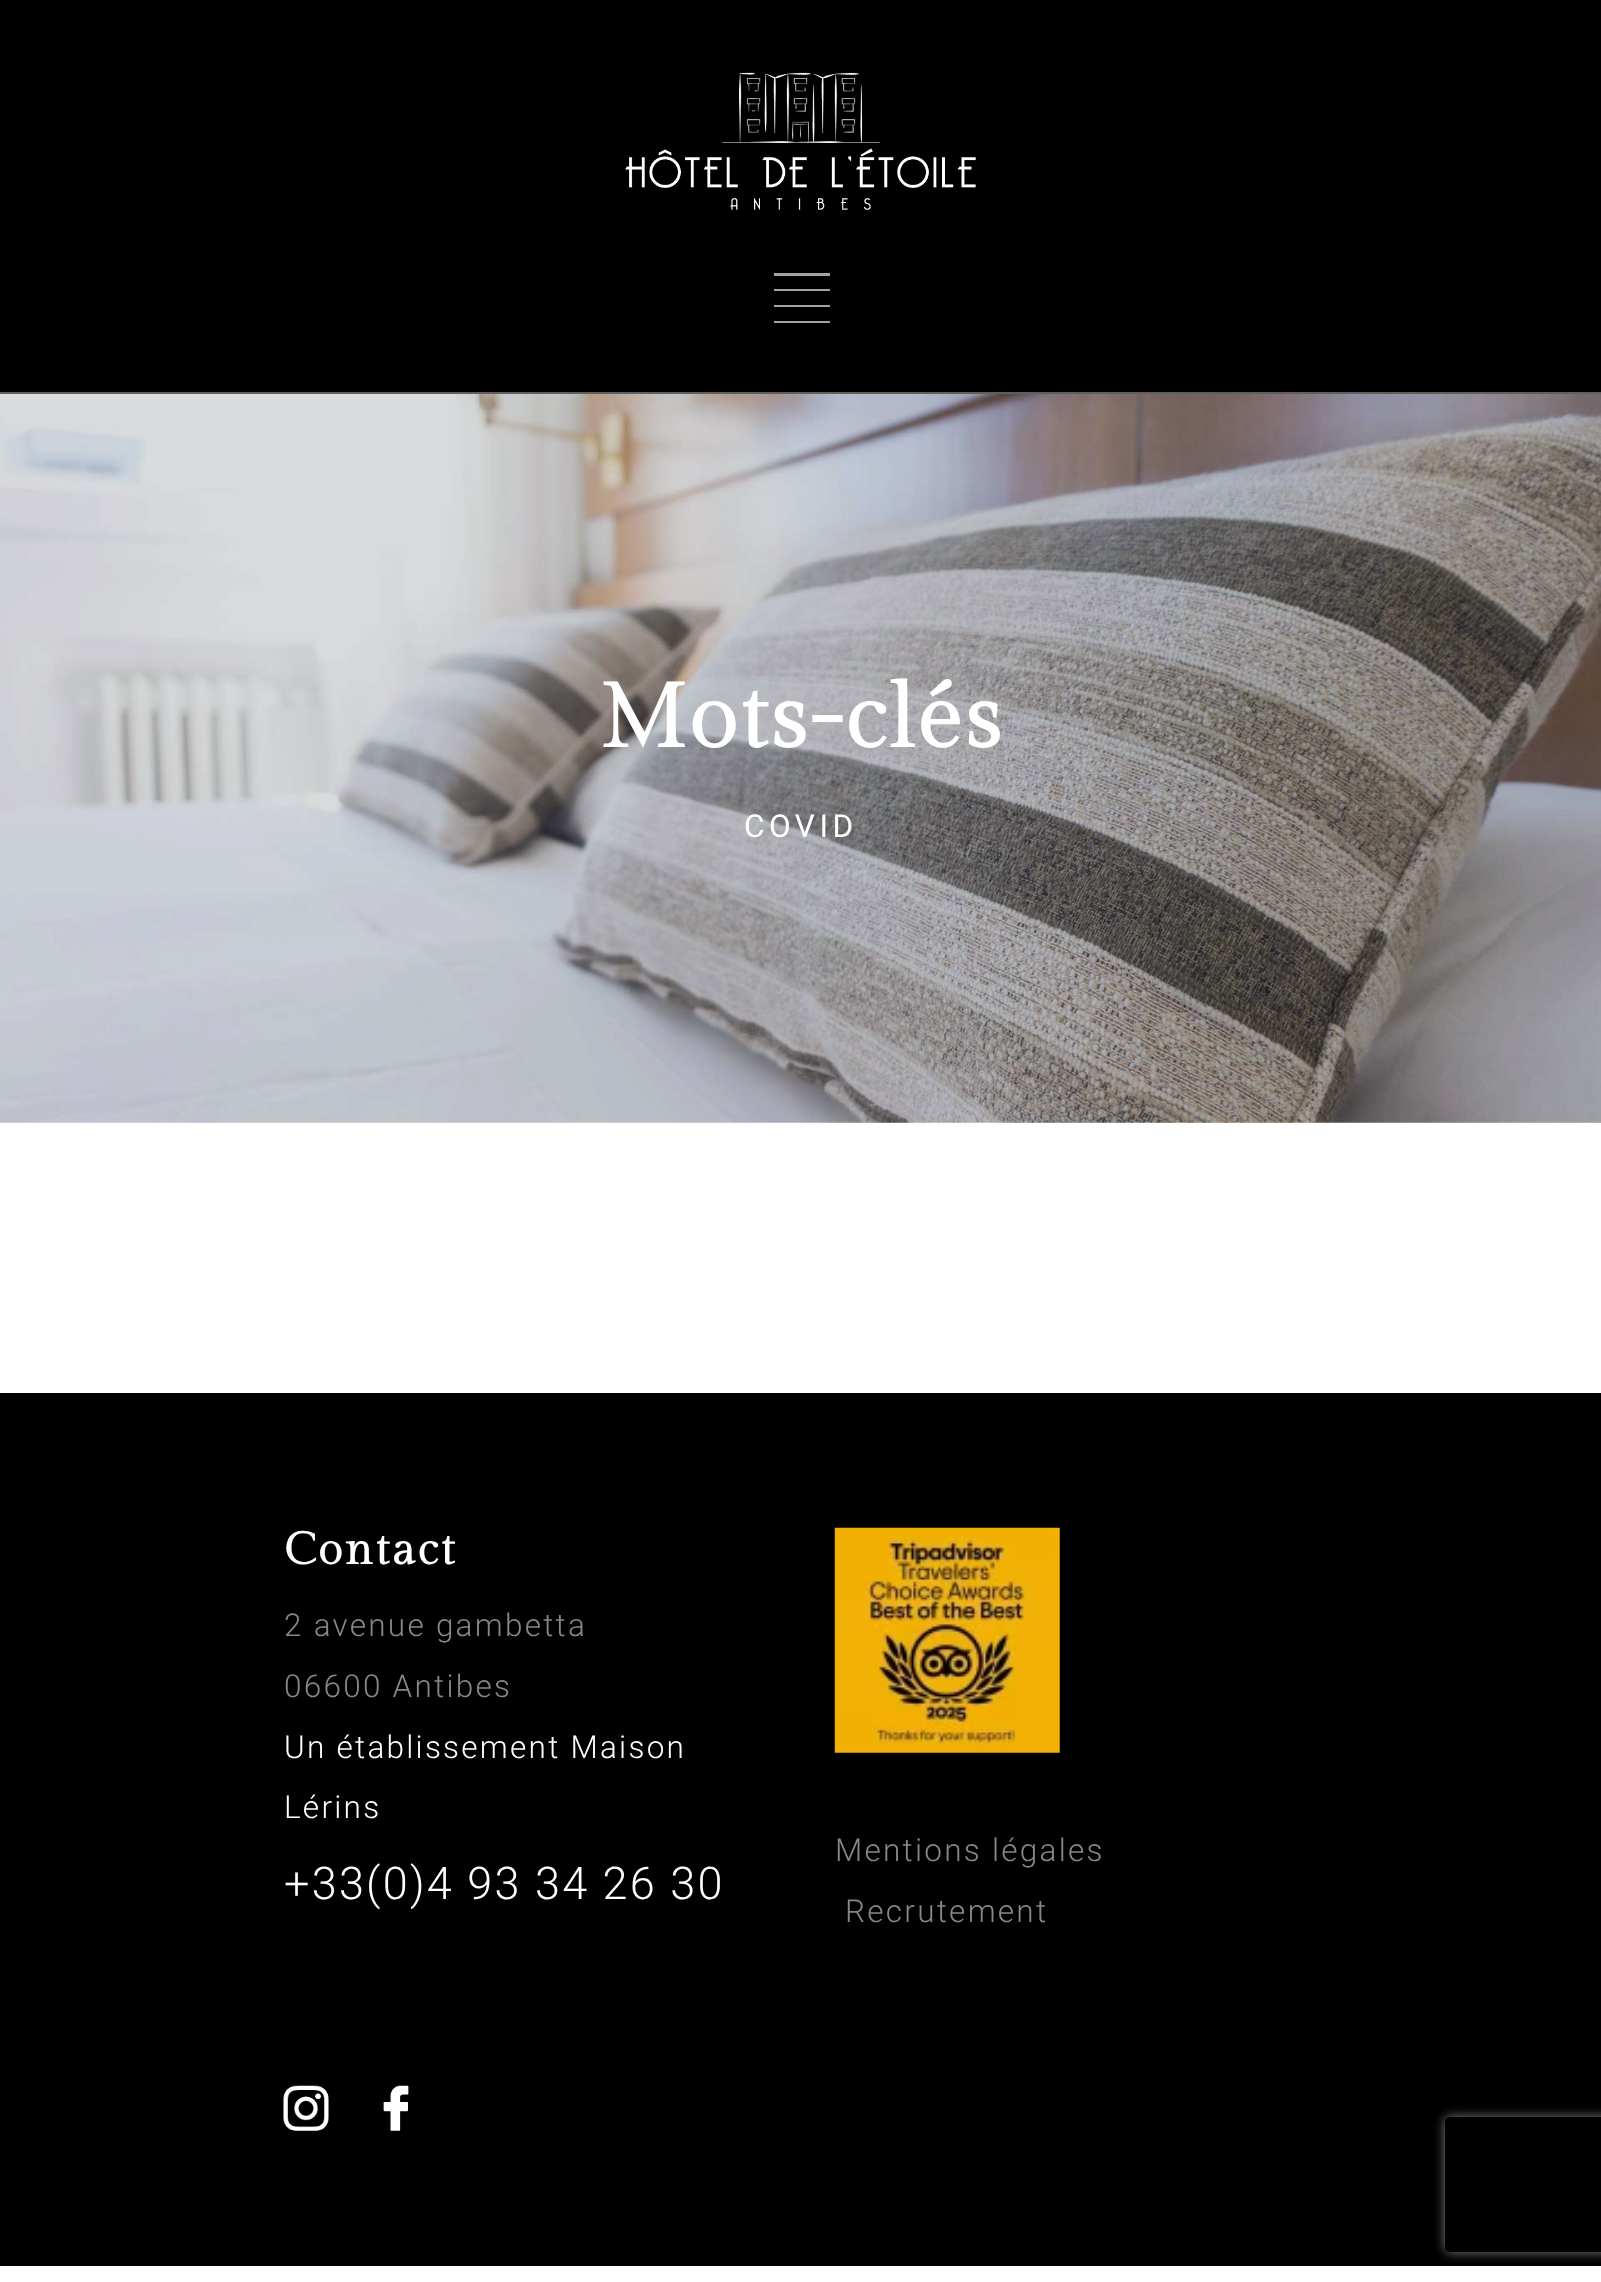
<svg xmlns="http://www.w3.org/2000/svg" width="1601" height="2282">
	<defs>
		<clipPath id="clip1"><path d="M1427 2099H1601V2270H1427ZM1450 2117H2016C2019 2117 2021 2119 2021 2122V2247C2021 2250 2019 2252 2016 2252H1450C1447 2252 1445 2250 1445 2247V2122C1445 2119 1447 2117 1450 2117Z" clip-rule="evenodd" /></clipPath>
	</defs>
	<rect width="100%" height="100%" fill="#FFFFFF" />
	<rect x="0" y="0" width="1601" height="392" fill="#000000" />
	<rect x="0" y="392" width="1601" height="2" fill="#5E5E5E" />
	<image x="625" y="72" width="351" height="138" href="assets/img1.png" />
	<rect x="774" y="273" width="56" height="3" fill="#A3A3A3" />
	<rect x="774" y="289" width="56" height="2" fill="#A3A3A3" />
	<rect x="774" y="305" width="56" height="2" fill="#A3A3A3" />
	<rect x="774" y="321" width="56" height="2" fill="#A3A3A3" />
	<image x="0" y="394" width="1601" height="729" href="assets/img2.png" />
	<text x="599" y="747" font-family="Gilda Display" font-size="90" font-weight="700" letter-spacing="2.25" fill="#FFFFFF">Mots-clés</text>
	<text x="744" y="837" font-family="Roboto" font-size="31.5" letter-spacing="4.5" fill="#FFFFFF">COVID</text>
	<rect x="0" y="1393" width="1601" height="873" fill="#000000" />
	<text x="284" y="1564" font-family="Gilda Display" font-size="45" font-weight="700" letter-spacing="2.25" fill="#FFFFFF">Contact</text>
	<g font-family="Roboto" font-size="31.5" font-weight="300" letter-spacing="2.25" fill="#878787">
		<text x="284" y="1636">2 avenue gambetta</text>
		<text x="284" y="1697">06600 Antibes</text>
	</g>
	<g font-family="Roboto" font-size="31.5" font-weight="300" letter-spacing="2.25" fill="#FFFFFF">
		<text x="284" y="1758">Un établissement Maison</text>
		<text x="284" y="1818">Lérins</text>
	</g>
	<text x="284" y="1899" font-family="Roboto" font-size="45" font-weight="300" letter-spacing="2.25" fill="#FFFFFF">+33(0)4 93 34 26 30</text>
	<image x="283" y="2085" width="46" height="46" href="assets/img3.png" />
	<image x="383" y="2085" width="26" height="46" href="assets/img4.png" />
	<image x="834" y="1527" width="226" height="226" href="assets/img5.png" />
	<g font-family="Roboto" font-size="31.5" font-weight="300" letter-spacing="2.25" fill="#878787">
		<text x="835" y="1861">Mentions légales</text>
		<text x="845" y="1922">Recrutement</text>
	</g>
	<g clip-path="url(#clip1)">
		<rect x="1445" y="2117" width="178" height="135" rx="5" fill="#808080" filter="blur(5.5px)" />
	</g>
</svg>
